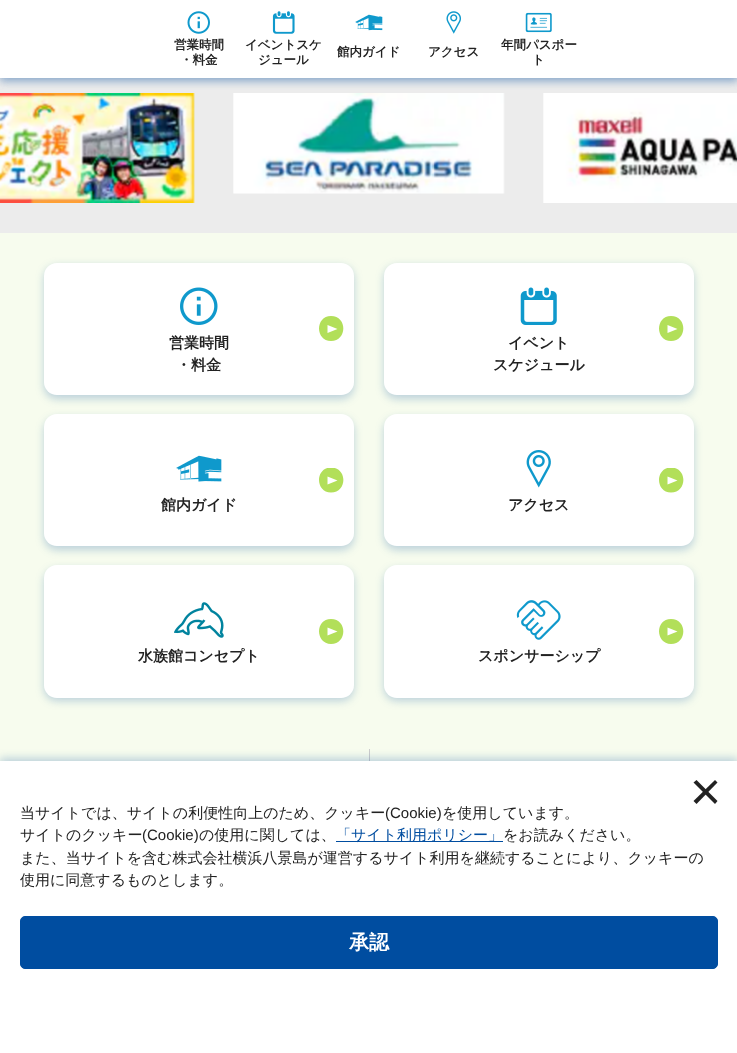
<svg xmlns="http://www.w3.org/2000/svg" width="737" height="1053">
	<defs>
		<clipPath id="clip1"><path d="M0 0H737V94H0ZM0-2H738V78H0Z" clip-rule="evenodd" /></clipPath>
		<clipPath id="clip2"><rect x="319" y="468" width="25" height="25" /></clipPath>
		<clipPath id="clip3"><rect x="659" y="468" width="25" height="25" /></clipPath>
	</defs>
	<rect width="100%" height="100%" fill="#F7FCEE" />
	<rect x="0" y="78" width="737" height="155" fill="#ECECEC" />
	<image x="0" y="93" width="195" height="110" href="assets/img6.png" />
	<image x="233" y="93" width="272" height="101" href="assets/img7.png" />
	<image x="543" y="93" width="194" height="110" href="assets/img8.png" />
	<rect x="0" y="-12" width="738" height="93" fill="#004DA0" fill-opacity="0.24" filter="blur(4px)" />
	<rect x="0" y="0" width="737" height="78" fill="#FFFFFF" />
	<g clip-path="url(#clip1)">
		<rect x="0" y="1" width="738" height="80" fill="#004DA0" fill-opacity="0.24" filter="blur(4px)" />
	</g>
	<image x="187" y="11" width="23" height="23" href="assets/img1.png" />
	<g font-family="WenQuanYi Zen Hei" font-size="12.5" font-weight="700" fill="#222222">
		<text x="174" y="49">営業時間</text>
		<text x="180" y="64">・料金</text>
	</g>
	<image x="272" y="11" width="23" height="23" href="assets/img2.png" />
	<g font-family="WenQuanYi Zen Hei" font-size="12.5" font-weight="700" fill="#222222">
		<text x="245" y="49">イベントスケ</text>
		<text x="258" y="64">ジュール</text>
	</g>
	<image x="355" y="14" width="28" height="17" href="assets/img3.png" />
	<text x="337" y="56" font-family="WenQuanYi Zen Hei" font-size="12.5" font-weight="700" fill="#222222">館内ガイド</text>
	<image x="446" y="11" width="15" height="23" href="assets/img4.png" />
	<text x="428" y="56" font-family="WenQuanYi Zen Hei" font-size="12.5" font-weight="700" fill="#222222">アクセス</text>
	<image x="525" y="12" width="27" height="21" href="assets/img5.png" />
	<g font-family="WenQuanYi Zen Hei" font-size="12.5" font-weight="700" fill="#222222">
		<text x="501" y="49">年間パスポー</text>
		<text x="532" y="64">ト</text>
	</g>
	<rect x="44" y="266" width="310" height="133" rx="13" fill="#004DA0" fill-opacity="0.24" filter="blur(4px)" />
	<rect x="44" y="263" width="310" height="132" rx="13" fill="#FFFFFF" />
	<image x="180" y="287" width="38" height="38" href="assets/img9.png" />
	<path d="M331 316C315 316 315 341 331 341C347.5 341 347.5 316 331 316ZM327.5 333V325L337.5 329Z" fill="#B2DF59" />
	<g font-family="WenQuanYi Zen Hei" font-size="15" font-weight="700" fill="#222222">
		<text x="169" y="348">営業時間</text>
		<text x="176" y="370">・料金</text>
	</g>
	<rect x="384" y="266" width="310" height="133" rx="13" fill="#004DA0" fill-opacity="0.24" filter="blur(4px)" />
	<rect x="384" y="263" width="310" height="132" rx="13" fill="#FFFFFF" />
	<image x="520" y="287" width="37" height="38" href="assets/img10.png" />
	<path d="M671 316C655 316 655 341 671 341C687.5 341 687.5 316 671 316ZM667.5 333V325L677.5 329Z" fill="#B2DF59" />
	<g font-family="WenQuanYi Zen Hei" font-size="15" font-weight="700" fill="#222222">
		<text x="508" y="348">イベント</text>
		<text x="493" y="370">スケジュール</text>
	</g>
	<rect x="44" y="418" width="310" height="132" rx="13" fill="#004DA0" fill-opacity="0.24" filter="blur(4px)" />
	<rect x="44" y="414" width="310" height="132" rx="13" fill="#FFFFFF" />
	<image x="176" y="455" width="46" height="27" href="assets/img11.png" />
	<g clip-path="url(#clip2)">
		<path d="M331 467.5C315 467.5 315 492.5 331 492.5C347.5 492.5 347.5 467.5 331 467.5ZM327.5 484.5V476.5L337.5 480.5Z" fill="#B2DF59" />
	</g>
	<text x="161" y="510" font-family="WenQuanYi Zen Hei" font-size="15" font-weight="700" fill="#222222">館内ガイド</text>
	<rect x="384" y="418" width="310" height="132" rx="13" fill="#004DA0" fill-opacity="0.24" filter="blur(4px)" />
	<rect x="384" y="414" width="310" height="132" rx="13" fill="#FFFFFF" />
	<image x="526" y="450" width="25" height="38" href="assets/img12.png" />
	<g clip-path="url(#clip3)">
		<path d="M671 467.5C655 467.5 655 492.5 671 492.5C687.5 492.5 687.5 467.5 671 467.5ZM667.5 484.5V476.5L677.5 480.5Z" fill="#B2DF59" />
	</g>
	<text x="508" y="510" font-family="WenQuanYi Zen Hei" font-size="15" font-weight="700" fill="#222222">アクセス</text>
	<rect x="44" y="569" width="310" height="132" rx="13" fill="#004DA0" fill-opacity="0.24" filter="blur(4px)" />
	<rect x="44" y="565" width="310" height="133" rx="13" fill="#FFFFFF" />
	<image x="174" y="602" width="50" height="36" href="assets/img13.png" />
	<path d="M331 619C315 619 315 643.5 331 644C347.5 644 347.5 619 331 619ZM327.5 635.5V627.5L337.5 631.5Z" fill="#B2DF59" />
	<text x="138" y="661" font-family="WenQuanYi Zen Hei" font-size="15" font-weight="700" fill="#222222">水族館コンセプト</text>
	<rect x="384" y="569" width="310" height="132" rx="13" fill="#004DA0" fill-opacity="0.24" filter="blur(4px)" />
	<rect x="384" y="565" width="310" height="133" rx="13" fill="#FFFFFF" />
	<image x="516" y="600" width="45" height="40" href="assets/img14.png" />
	<path d="M671 619C655 619 655 643.5 671 644C687.5 644 687.5 619 671 619ZM667.5 635.5V627.5L677.5 631.5Z" fill="#B2DF59" />
	<text x="478" y="661" font-family="WenQuanYi Zen Hei" font-size="15" font-weight="700" fill="#222222">スポンサーシップ</text>
	<rect x="369" y="749" width="1" height="20" fill="#CCCCCC" />
	<rect x="0" y="758" width="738" height="292" fill="#004DA0" fill-opacity="0.24" filter="blur(4px)" />
	<rect x="0" y="761" width="737" height="292" fill="#FFFFFF" />
	<path d="M696.5 780L717.5 801L715 804L693.5 782.5Z" fill="#222222" />
	<path d="M717.5 782.5L696.5 804L693.5 801L715 780Z" fill="#222222" />
	<text x="20" y="818" font-family="WenQuanYi Zen Hei" font-size="15" font-weight="500" fill="#222222">当サイトでは、サイトの利便性向上のため、クッキー</text>
	<text x="385" y="818" font-family="Liberation Sans" font-size="15" fill="#222222">(Cookie)</text>
	<g font-family="WenQuanYi Zen Hei" font-size="15" font-weight="500" fill="#222222">
		<text x="442" y="818">を使用しています。</text>
		<text x="20" y="840">サイトのクッキー</text>
	</g>
	<text x="142" y="840" font-family="Liberation Sans" font-size="15" fill="#222222">(Cookie)</text>
	<text x="199" y="840" font-family="WenQuanYi Zen Hei" font-size="15" font-weight="500" fill="#222222">の使用に関しては、</text>
	<rect x="336" y="841" width="167" height="1" fill="#004DA0" />
	<text x="336" y="840" font-family="WenQuanYi Zen Hei" font-size="15" font-weight="500" fill="#004DA0">「サイト利用ポリシー」</text>
	<g font-family="WenQuanYi Zen Hei" font-size="15" font-weight="500" fill="#222222">
		<text x="503" y="840">をお読みください。</text>
		<text x="20" y="863">また、当サイトを含む株式会社横浜八景島が運営するサイト利用を継続することにより、クッキーの</text>
		<text x="20" y="885">使用に同意するものとします。</text>
	</g>
	<rect x="20.5" y="916.5" width="697" height="52" rx="4.5" fill="#004DA0" stroke="#004DA0" />
	<text x="349" y="949" font-family="WenQuanYi Zen Hei" font-size="20" font-weight="700" fill="#FFFFFF">承認</text>
</svg>
